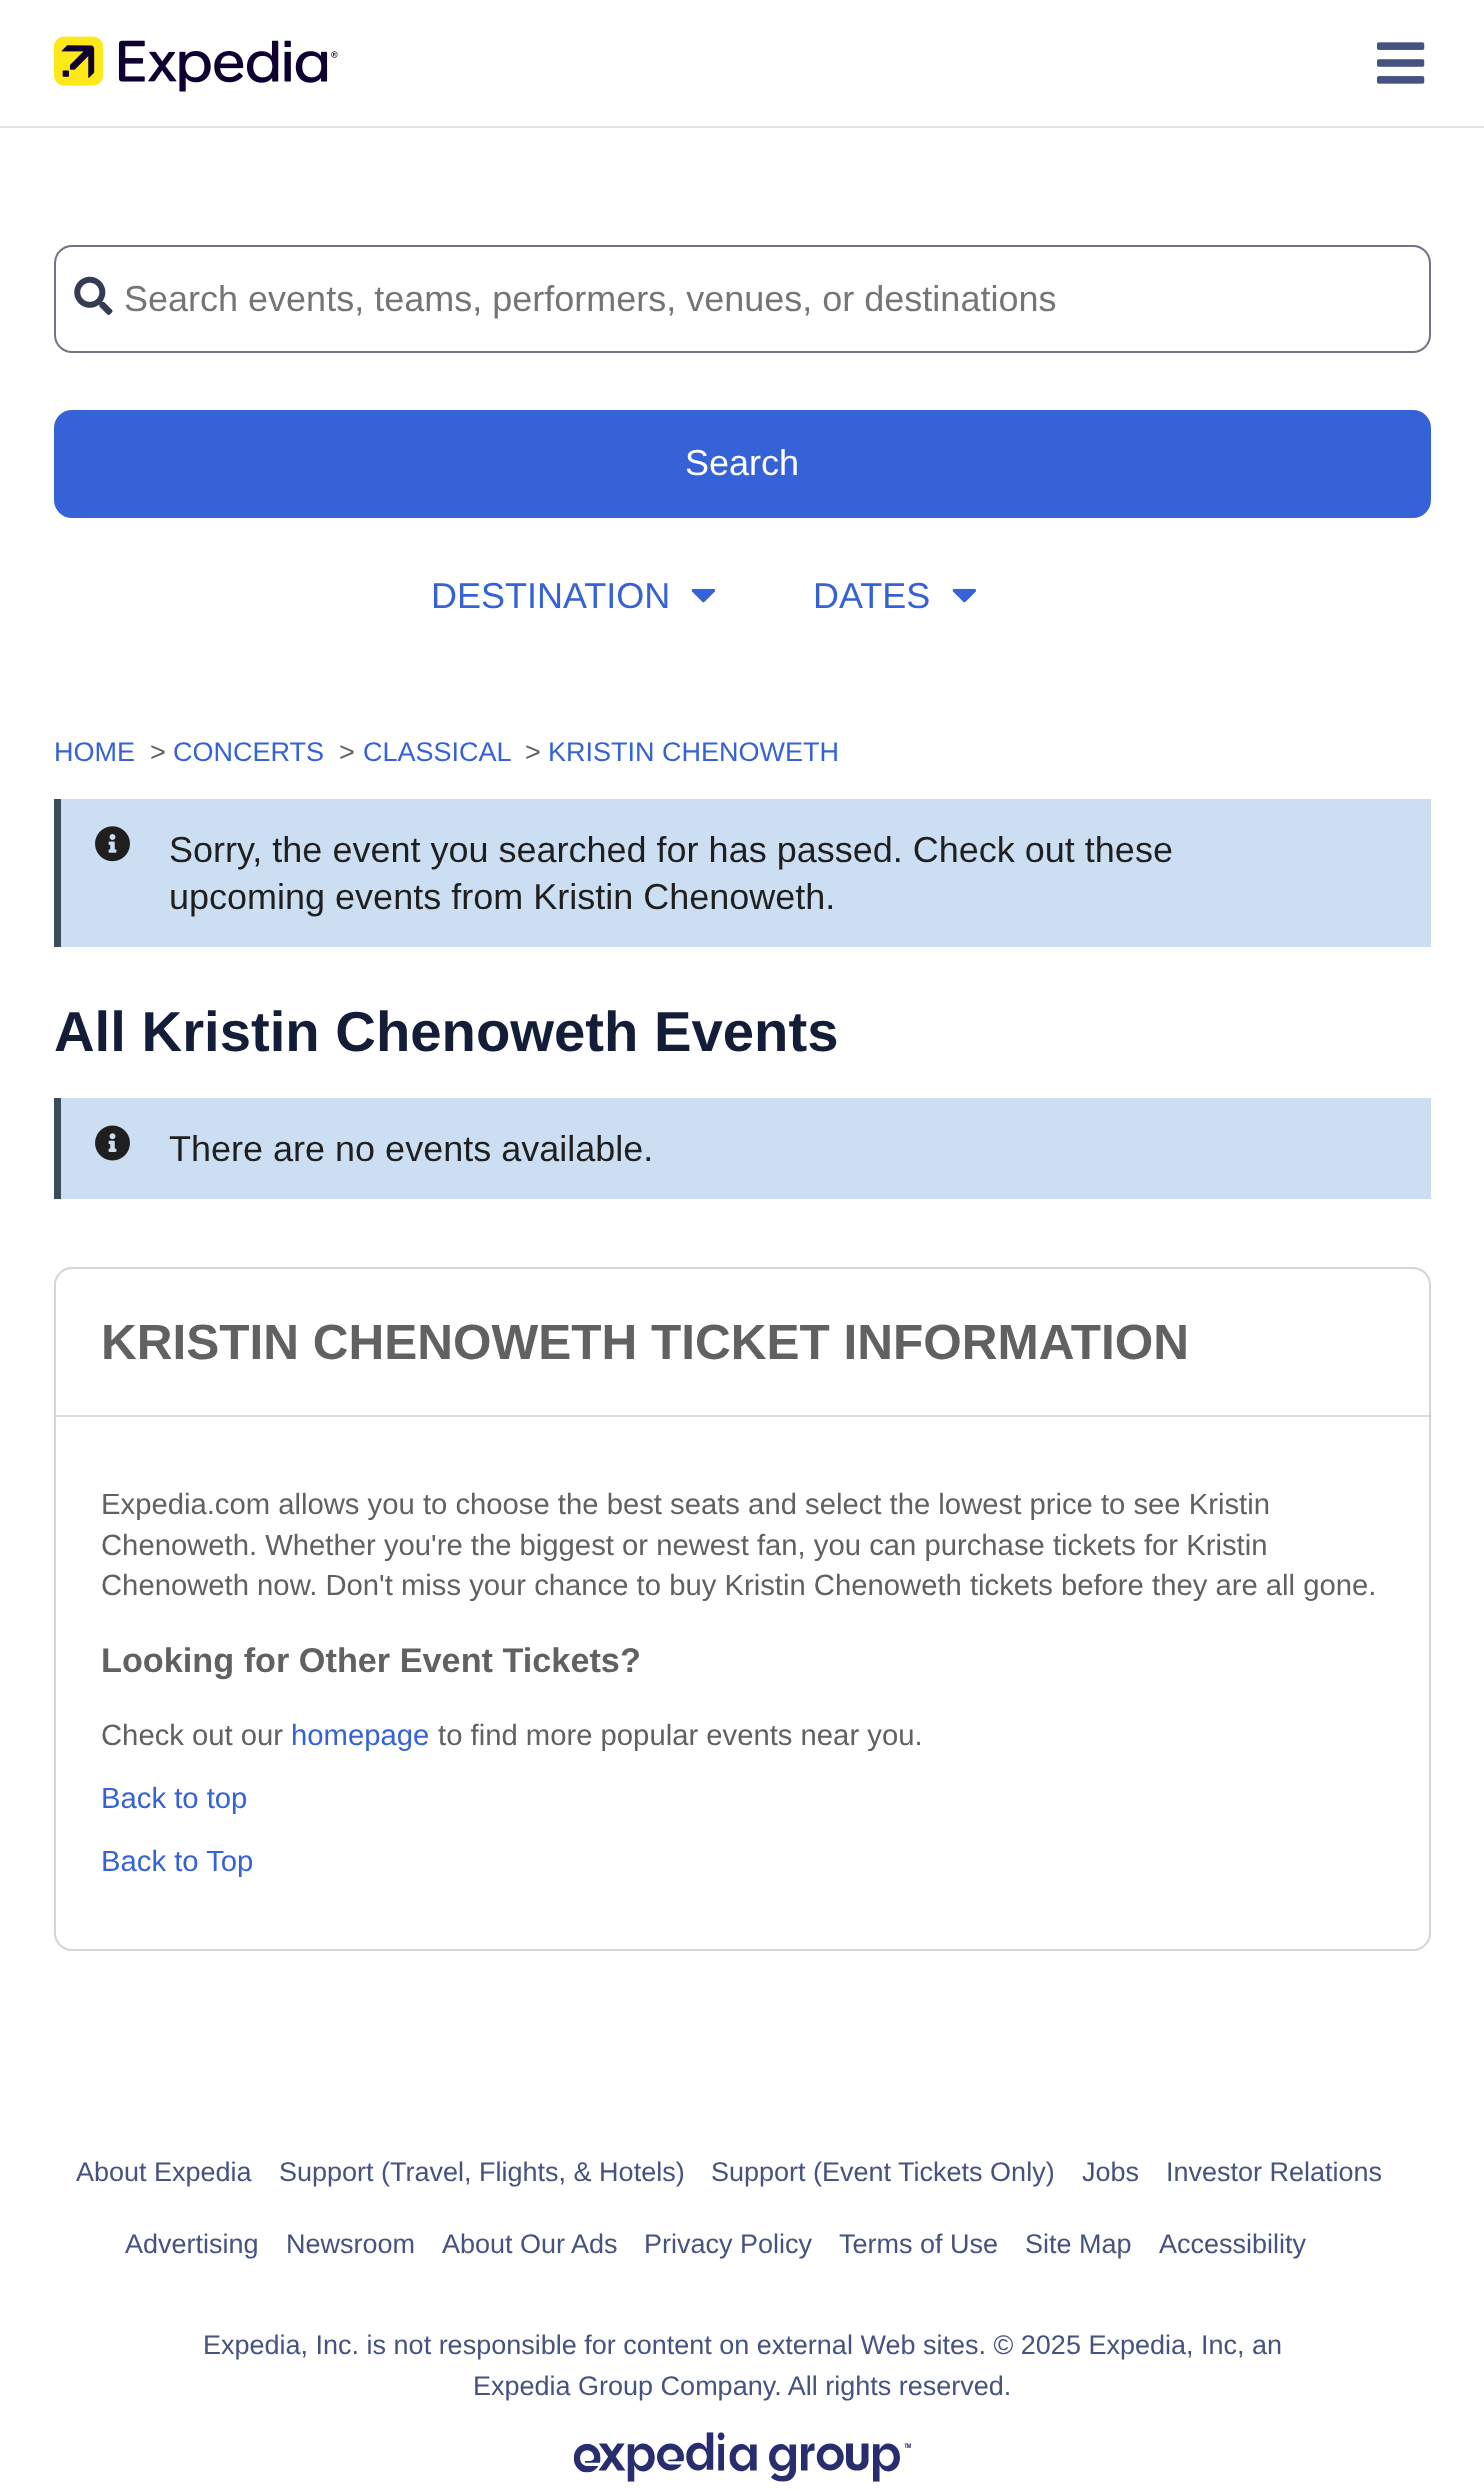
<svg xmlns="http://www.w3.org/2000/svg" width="1484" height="2490">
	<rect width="100%" height="100%" fill="#FFFFFF" />
	<rect x="0" y="126" width="1484" height="2" fill="#E0E2E5" />
	<image x="54" y="36" width="284" height="56" href="assets/img1.png" />
	<image x="1377" y="42" width="48" height="42" href="assets/img2.png" />
	<rect x="55" y="246" width="1375" height="106" rx="17" fill="none" stroke="#727483" stroke-width="2" />
	<image x="74" y="276" width="39" height="39" href="assets/img3.png" />
	<text x="124" y="311" font-family="Liberation Sans" font-size="36" fill="#757575">Search events, teams, performers, venues, or destinations</text>
	<rect x="54" y="410" width="1377" height="108" rx="18" fill="#3662D8" />
	<text x="685" y="475" font-family="Liberation Sans" font-size="36" fill="#FFFFFF">Search</text>
	<text x="431" y="608" font-family="Liberation Sans" font-size="36" fill="#3662D8">DESTINATION</text>
	<image x="691" y="588" width="25" height="15" href="assets/img4.png" />
	<text x="813" y="608" font-family="Liberation Sans" font-size="36" fill="#3662D8">DATES</text>
	<image x="952" y="588" width="25" height="15" href="assets/img4.png" />
	<text x="54" y="761" font-family="Liberation Sans" font-size="27" fill="#3662D8">HOME</text>
	<text x="150" y="761" font-family="Liberation Sans" font-size="27" fill="#616161">&gt;</text>
	<text x="173" y="761" font-family="Liberation Sans" font-size="27" fill="#3662D8">CONCERTS</text>
	<text x="339" y="761" font-family="Liberation Sans" font-size="27" fill="#616161">&gt;</text>
	<text x="363" y="761" font-family="Liberation Sans" font-size="27" fill="#3662D8">CLASSICAL</text>
	<text x="525" y="761" font-family="Liberation Sans" font-size="27" fill="#616161">&gt;</text>
	<text x="548" y="761" font-family="Liberation Sans" font-size="27" fill="#3662D8">KRISTIN CHENOWETH</text>
	<rect x="61" y="799" width="1370" height="148" fill="#CBDEF2" />
	<rect x="54" y="799" width="7" height="148" fill="#3B4C5B" />
	<image x="95" y="826" width="35" height="36" href="assets/img5.png" />
	<g font-family="Liberation Sans" font-size="36" fill="#1F1F1F">
		<text x="169" y="862">Sorry, the event you searched for has passed. Check out these</text>
		<text x="169" y="909">upcoming events from Kristin Chenoweth.</text>
	</g>
	<text x="54" y="1051" font-family="Liberation Sans" font-size="56.25" font-weight="700" fill="#141D38">All Kristin Chenoweth Events</text>
	<rect x="61" y="1098" width="1370" height="101" fill="#CBDEF2" />
	<rect x="54" y="1098" width="7" height="101" fill="#3B4C5B" />
	<image x="95" y="1125" width="35" height="36" href="assets/img6.png" />
	<text x="169" y="1161" font-family="Liberation Sans" font-size="36" fill="#1F1F1F">There are no events available.</text>
	<rect x="55" y="1268" width="1375" height="682" rx="17" fill="none" stroke="#D7D4D2" stroke-width="2" />
	<rect x="56" y="1415" width="1373" height="2" fill="#DDDDDD" />
	<text x="101" y="1359" font-family="Liberation Sans" font-size="49.5" font-weight="700" fill="#616161">KRISTIN CHENOWETH TICKET INFORMATION</text>
	<g font-family="Liberation Sans" font-size="29.25" fill="#616161">
		<text x="101" y="1514">Expedia.com allows you to choose the best seats and select the lowest price to see Kristin</text>
		<text x="101" y="1555">Chenoweth. Whether you're the biggest or newest fan, you can purchase tickets for Kristin</text>
		<text x="101" y="1595">Chenoweth now. Don't miss your chance to buy Kristin Chenoweth tickets before they are all gone.</text>
	</g>
	<text x="101" y="1672" font-family="Liberation Sans" font-size="34.25" font-weight="700" fill="#616161">Looking for Other Event Tickets?</text>
	<text x="101" y="1745" font-family="Liberation Sans" font-size="29.25" fill="#616161">Check out our</text>
	<text x="291" y="1745" font-family="Liberation Sans" font-size="29.25" fill="#3662D8">homepage</text>
	<text x="438" y="1745" font-family="Liberation Sans" font-size="29.25" fill="#616161">to find more popular events near you.</text>
	<g font-family="Liberation Sans" font-size="29.25" fill="#3662D8">
		<text x="101" y="1808">Back to top</text>
		<text x="101" y="1871">Back to Top</text>
	</g>
	<g font-family="Liberation Sans" font-size="27" fill="#465280">
		<text x="76" y="2181">About Expedia</text>
		<text x="279" y="2181">Support (Travel, Flights, &amp; Hotels)</text>
		<text x="711" y="2181">Support (Event Tickets Only)</text>
		<text x="1082" y="2181">Jobs</text>
		<text x="1166" y="2181">Investor Relations</text>
		<text x="125" y="2253">Advertising</text>
		<text x="286" y="2253">Newsroom</text>
		<text x="442" y="2253">About Our Ads</text>
		<text x="644" y="2253">Privacy Policy</text>
		<text x="839" y="2253">Terms of Use</text>
		<text x="1025" y="2253">Site Map</text>
		<text x="1159" y="2253">Accessibility</text>
		<text x="203" y="2354">Expedia, Inc. is not responsible for content on external Web sites. © 2025 Expedia, Inc, an</text>
		<text x="473" y="2395">Expedia Group Company. All rights reserved.</text>
	</g>
	<image x="574" y="2432" width="337" height="50" href="assets/img7.png" />
</svg>
